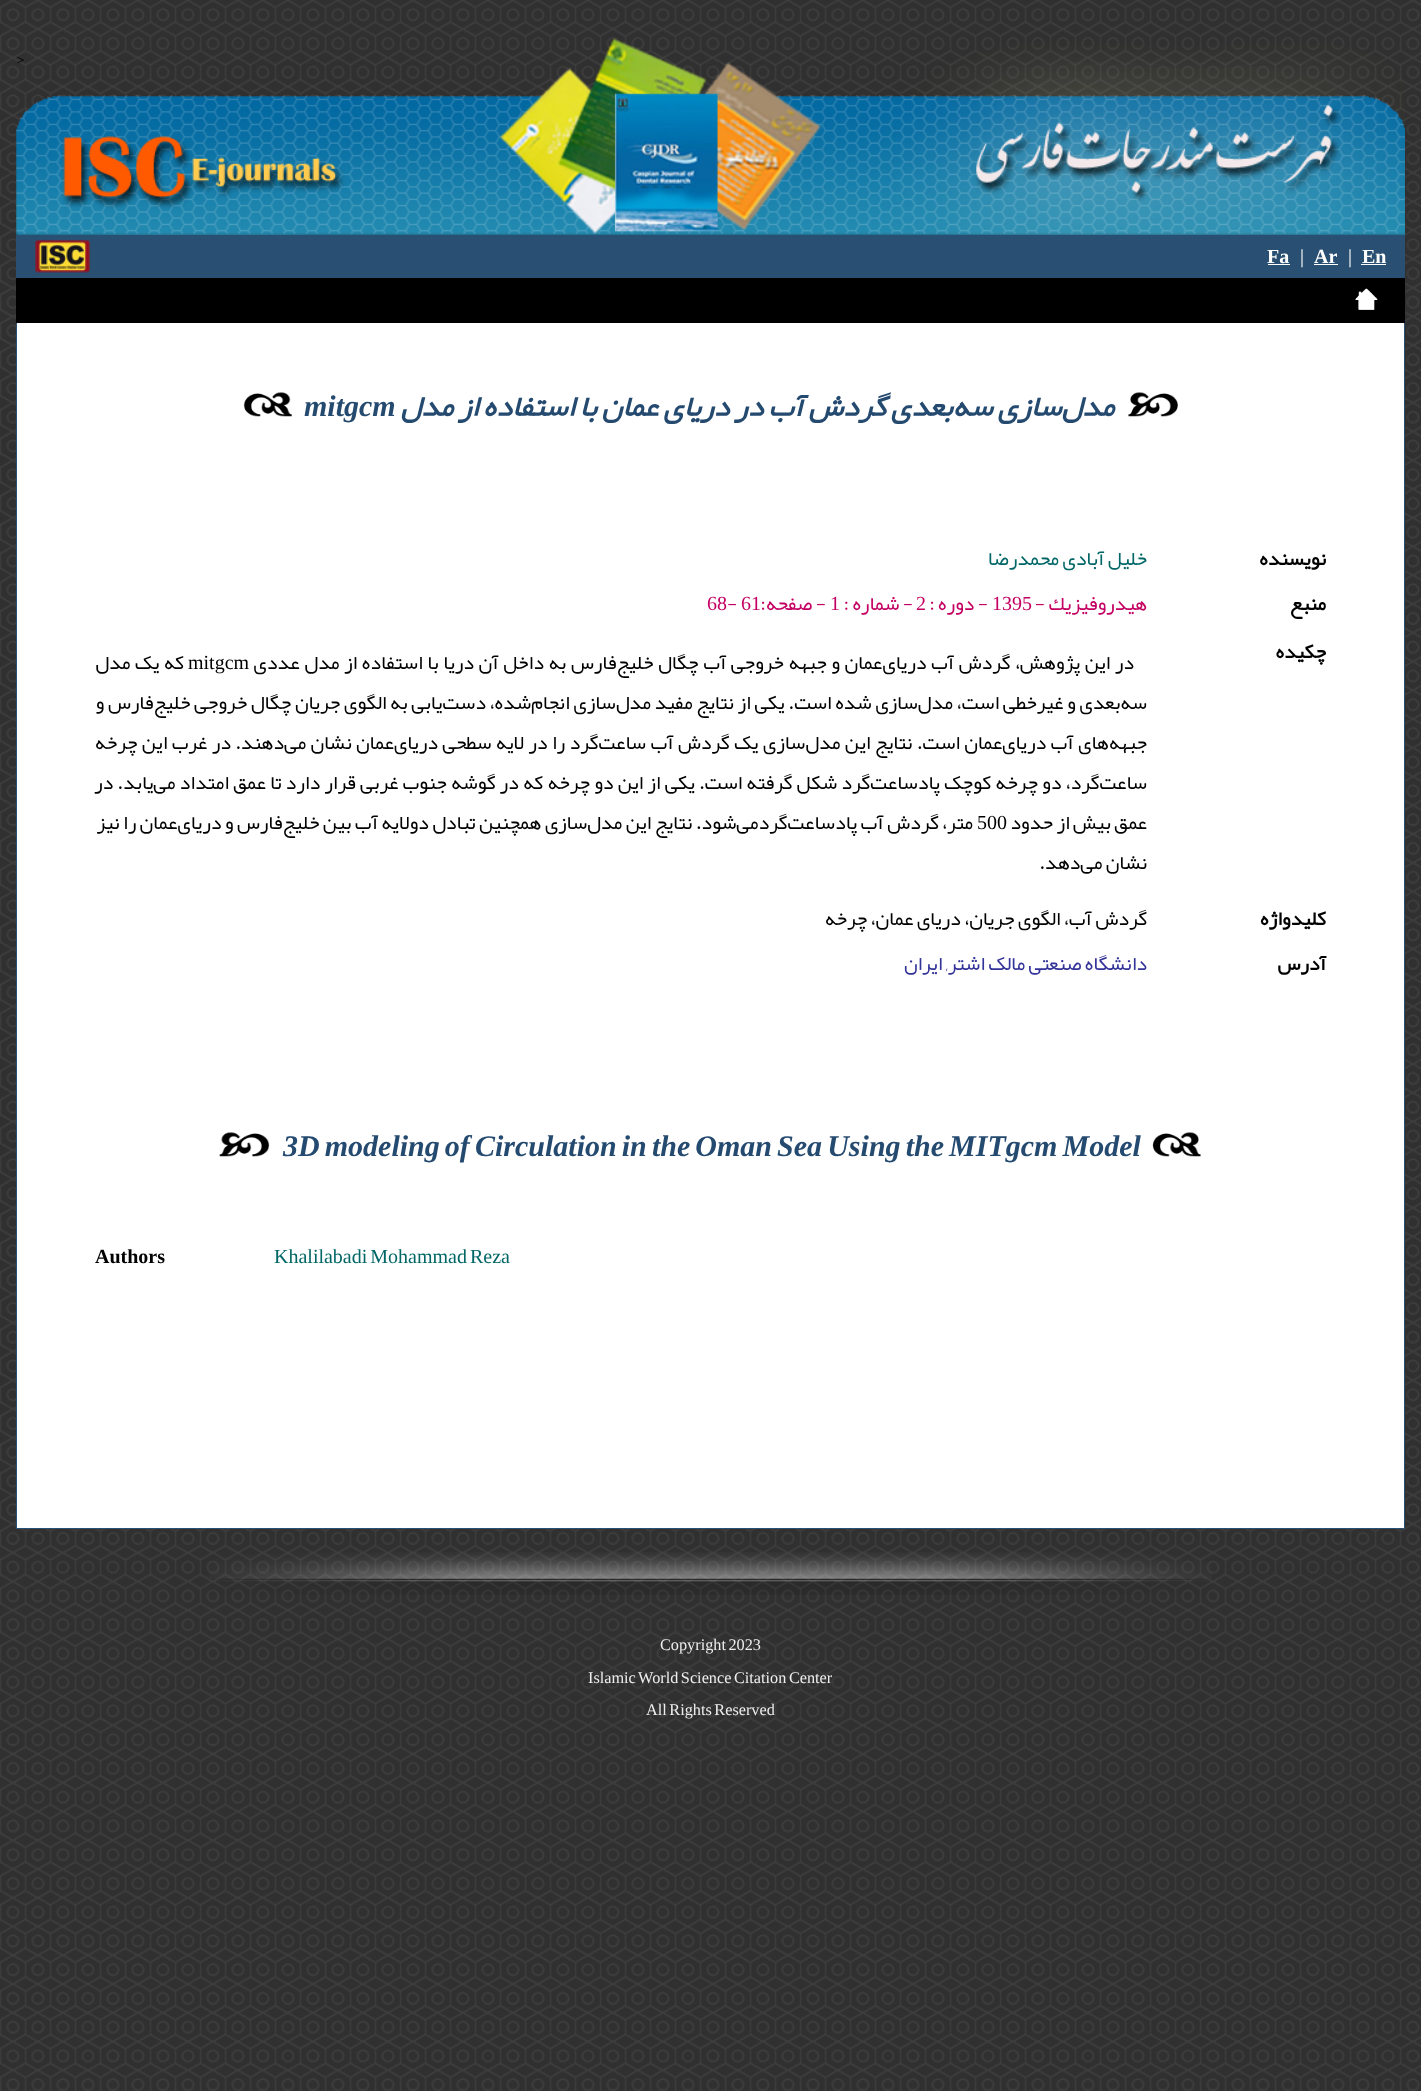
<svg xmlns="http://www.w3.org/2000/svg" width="1421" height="2091">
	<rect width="100%" height="100%" fill="#FFFFFF" />
	<image x="0" y="0" width="1421" height="2091" href="assets/img1.png" />
	<image x="16" y="37" width="1389" height="198" href="assets/img2.png" />
	<text x="16" y="64" font-family="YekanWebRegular" font-size="20" fill="#000000">&gt;</text>
	<rect x="16" y="235" width="1389" height="43" fill="#295072" />
	<text x="1362" y="263" font-family="Liberation Serif" font-size="20" font-weight="700" fill="#FFFFFF">En</text>
	<rect x="1361" y="264" width="25" height="1" fill="#FFFFFF" />
	<text x="1348" y="263" font-family="Liberation Serif" font-size="20" fill="#FFFFFF">|</text>
	<text x="1314" y="263" font-family="Liberation Serif" font-size="20" font-weight="700" fill="#FFFFFF">Ar</text>
	<rect x="1314" y="264" width="24" height="1" fill="#FFFFFF" />
	<text x="1300" y="263" font-family="Liberation Serif" font-size="20" fill="#FFFFFF">|</text>
	<text x="1267" y="263" font-family="Liberation Serif" font-size="20" font-weight="700" fill="#FFFFFF">Fa</text>
	<rect x="1268" y="264" width="22" height="1" fill="#FFFFFF" />
	<image x="35" y="240" width="55" height="33" href="assets/img3.png" />
	<rect x="16" y="278" width="1389" height="45" fill="#000000" />
	<image x="1355" y="288" width="23" height="22" href="assets/img4.png" />
	<rect x="17" y="323" width="1387" height="1205" fill="#FFFFFF" />
	<rect x="1404" y="323" width="1" height="1206" fill="#295072" />
	<rect x="16" y="1528" width="1389" height="1" fill="#295072" />
	<rect x="16" y="323" width="1" height="1206" fill="#295072" />
	<image x="1128" y="392" width="50" height="25" href="assets/img5.png" />
	<text x="1114" y="416" font-family="YekanWebRegular" font-size="30" font-weight="700" font-style="italic" direction="rtl" fill="#254A70">مدل‌سازی سه‌بعدی گردش آب در دریای عمان  با استفاده از مدل</text>
	<text x="304" y="416" font-family="Liberation Serif" font-size="30" font-weight="700" font-style="italic" fill="#254A70">mitgcm</text>
	<image x="243" y="392" width="49" height="25" href="assets/img6.png" />
	<text x="1326" y="565" font-family="YekanWebRegular" font-size="20" font-weight="700" direction="rtl" fill="#000000">نویسنده</text>
	<text x="1147" y="565" font-family="YekanWebRegular" font-size="20" direction="rtl" fill="#006666">خلیل آبادی محمدرضا</text>
	<text x="1326" y="610" font-family="YekanWebRegular" font-size="20" font-weight="700" direction="rtl" fill="#000000">منبع</text>
	<text x="1147" y="610" font-family="YekanWebRegular" font-size="20" direction="rtl" fill="#C40062">هيدروفيزيك -</text>
	<text x="992" y="610" font-family="Liberation Serif" font-size="20" fill="#C40062">1395</text>
	<text x="988" y="610" font-family="YekanWebRegular" font-size="20" direction="rtl" fill="#C40062">- دوره :</text>
	<text x="916" y="610" font-family="Liberation Serif" font-size="20" fill="#C40062">2</text>
	<text x="913" y="610" font-family="YekanWebRegular" font-size="20" direction="rtl" fill="#C40062">- شماره :</text>
	<text x="830" y="610" font-family="Liberation Serif" font-size="20" fill="#C40062">1</text>
	<text x="826" y="610" font-family="YekanWebRegular" font-size="20" direction="rtl" fill="#C40062">- صفحه:</text>
	<text x="741" y="610" font-family="Liberation Serif" font-size="20" fill="#C40062">61</text>
	<text x="727" y="610" font-family="YekanWebRegular" font-size="20" fill="#C40062">-</text>
	<text x="707" y="610" font-family="Liberation Serif" font-size="20" fill="#C40062">68</text>
	<text x="1326" y="658" font-family="YekanWebRegular" font-size="20" font-weight="700" direction="rtl" fill="#000000">چکیده</text>
	<text x="1134" y="669" word-spacing="1.2" font-family="YekanWebRegular" font-size="20" direction="rtl" fill="#000000">در این پژوهش، گردش آب دریای‌عمان و جبهه خروجی آب چگال خلیج‌فارس به داخل آن دریا با استفاده از مدل عددی</text>
	<text x="188" y="669" font-family="Liberation Serif" font-size="20" fill="#000000">mitgcm</text>
	<g font-family="YekanWebRegular" font-size="20" direction="rtl" fill="#000000">
		<text x="184" y="669" word-spacing="1">که یک مدل</text>
		<text x="1147" y="709" word-spacing="0.25">سه‌بعدی و غیرخطی است، مدل‌سازی شده است. یکی از نتایج مفید مدل‌سازی انجام‌شده، دست‌یابی به الگوی جریان چگال خروجی خلیج‌فارس و</text>
		<text x="1147" y="749" word-spacing="1">جبهه‌های آب دریای‌عمان است. نتایج این مدل‌سازی یک گردش آب ساعت‌گرد را در لایه سطحی دریای‌عمان نشان می‌دهند. در غرب این چرخه</text>
		<text x="1147" y="789" word-spacing="0.75">ساعت‌گرد، دو چرخه کوچک پادساعت‌گرد شکل گرفته است. یکی از این دو چرخه که در گوشه جنوب غربی قرار دارد تا عمق امتداد می‌یابد. در</text>
		<text x="1147" y="829">عمق بیش از حدود</text>
	</g>
	<text x="977" y="829" font-family="Liberation Serif" font-size="20" fill="#000000">500</text>
	<g font-family="YekanWebRegular" font-size="20" direction="rtl" fill="#000000">
		<text x="973" y="829">متر، گردش آب پادساعت‌گردمی‌شود. نتایج این مدل‌سازی همچنین تبادل دولایه آب بین خلیج‌فارس و دریای‌عمان را نیز</text>
		<text x="1147" y="869">نشان می‌دهد.</text>
	</g>
	<text x="1326" y="925" font-family="YekanWebRegular" font-size="20" font-weight="700" direction="rtl" fill="#000000">کلیدواژه</text>
	<text x="1147" y="925" font-family="YekanWebRegular" font-size="20" direction="rtl" fill="#000000">گردش آب، الگوی جریان، دریای عمان، چرخه</text>
	<text x="1326" y="970" font-family="YekanWebRegular" font-size="20" font-weight="700" direction="rtl" fill="#000000">آدرس</text>
	<text x="1147" y="970" font-family="YekanWebRegular" font-size="20" direction="rtl" fill="#333399">دانشگاه صنعتی مالک اشتر, ایران</text>
	<image x="1152" y="1132" width="49" height="25" href="assets/img7.png" />
	<text x="283" y="1156" word-spacing="-2.4" font-family="Liberation Serif" font-size="30" font-weight="700" font-style="italic" fill="#254A70">3D modeling of Circulation in the Oman Sea Using the MITgcm Model</text>
	<image x="219" y="1132" width="51" height="25" href="assets/img8.png" />
	<text x="274" y="1263" word-spacing="-2" font-family="Liberation Serif" font-size="20" fill="#006666">Khalilabadi Mohammad Reza</text>
	<text x="95" y="1263" font-family="Liberation Serif" font-size="20" font-weight="700" fill="#000000">Authors</text>
	<image x="209" y="1552" width="1003" height="43" href="assets/img9.png" />
	<g font-family="Liberation Serif" font-size="16.25" fill="#EEEEEE">
		<text x="660" y="1650" word-spacing="-1.5">Copyright 2023</text>
		<text x="588" y="1683" word-spacing="-1.5">Islamic World Science Citation Center</text>
		<text x="646" y="1715" word-spacing="-1.5">All Rights Reserved</text>
	</g>
</svg>
